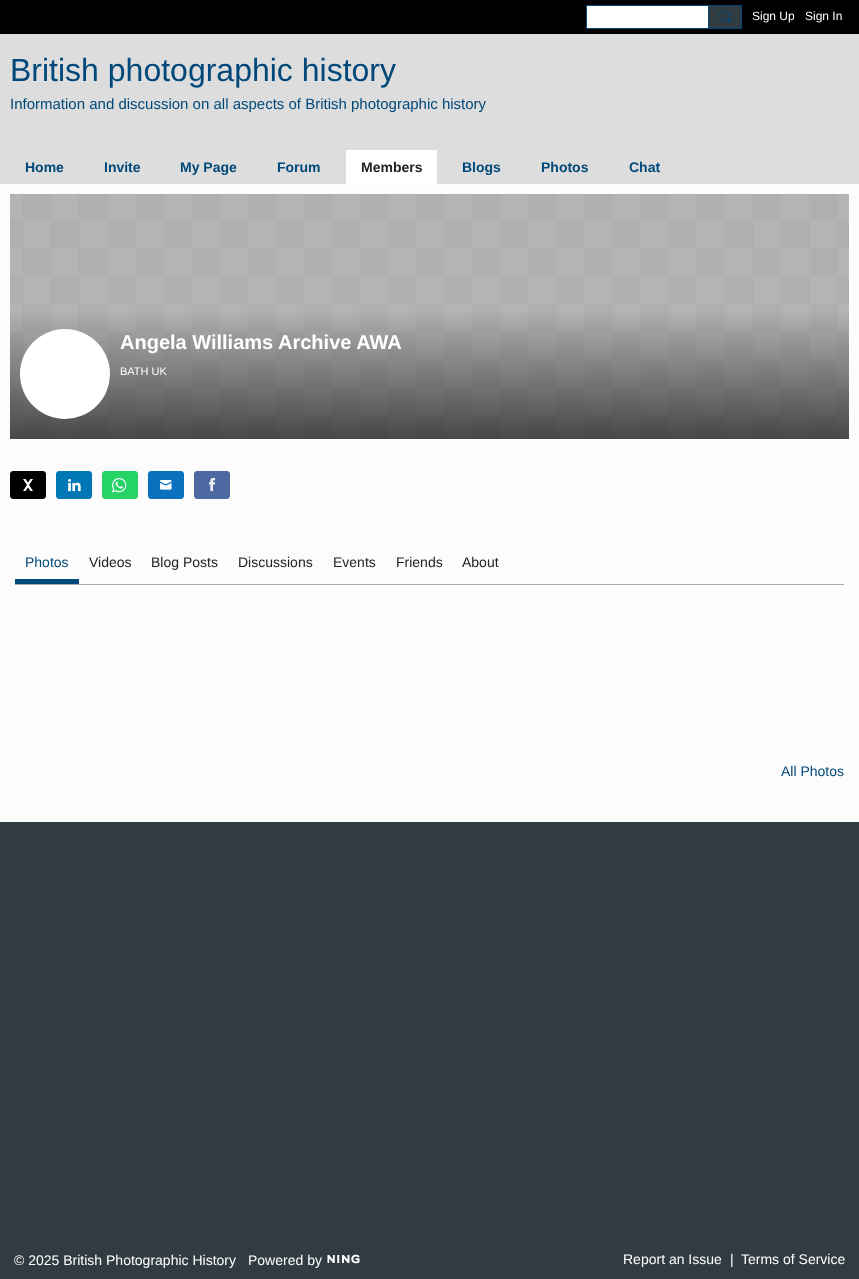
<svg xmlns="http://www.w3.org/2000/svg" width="859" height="1279">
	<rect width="100%" height="100%" fill="#313B42" />
	<rect x="0" y="0" width="859" height="34" fill="#000000" />
	<rect x="586.5" y="5.5" width="122" height="23" fill="#FFFFFF" stroke="#004879" />
	<rect x="708.5" y="5.5" width="33" height="23" fill="#313B42" stroke="#004879" />
	<circle cx="724.5" cy="15.5" r="5" fill="none" stroke="#004879" />
	<path d="M729 19L731.5 21.5C731.5 22 731.5 22.5 731 23C730 24 728.5 21.5 727.5 20.5C727 19.5 728 18.5 729 19Z" fill="#004879" />
	<g font-family="Liberation Sans" font-size="12" fill="#FFFFFF">
		<text x="752" y="20">Sign Up</text>
		<text x="805" y="20">Sign In</text>
	</g>
	<rect x="0" y="34" width="859" height="150" fill="#DDDDDD" />
	<text x="10" y="81" font-family="Liberation Sans" font-size="32" fill="#004879">British photographic history</text>
	<text x="10" y="109" font-family="Liberation Sans" font-size="15" fill="#004879">Information and discussion on all aspects of British photographic history</text>
	<g font-family="Liberation Sans" font-size="14" font-weight="700" fill="#004879">
		<text x="25" y="172">Home</text>
		<text x="104" y="172">Invite</text>
		<text x="180" y="172">My Page</text>
		<text x="277" y="172">Forum</text>
	</g>
	<rect x="346" y="150" width="91" height="34" fill="#FFFFFF" />
	<text x="361" y="172" font-family="Liberation Sans" font-size="14" font-weight="700" fill="#222222">Members</text>
	<g font-family="Liberation Sans" font-size="14" font-weight="700" fill="#004879">
		<text x="462" y="172">Blogs</text>
		<text x="541" y="172">Photos</text>
		<text x="629" y="172">Chat</text>
	</g>
	<rect x="0" y="184" width="859" height="638" fill="#FCFCFC" />
	<rect x="10" y="519" width="839" height="1" fill="#FFFFFF" />
	<image x="10" y="194" width="839" height="245" href="assets/img1.png" />
	<circle cx="65" cy="374" r="45" fill="#FFFFFF" />
	<text x="120" y="349" font-family="Liberation Sans" font-size="20" font-weight="700" fill="#FFFFFF">Angela Williams Archive AWA</text>
	<text x="120" y="375" font-family="Liberation Sans" font-size="11" fill="#FFFFFF">BATH UK</text>
	<image x="10" y="471" width="36" height="28" href="assets/img2.png" />
	<image x="56" y="471" width="36" height="28" href="assets/img3.png" />
	<image x="102" y="471" width="36" height="28" href="assets/img4.png" />
	<image x="148" y="471" width="36" height="28" href="assets/img5.png" />
	<image x="194" y="471" width="36" height="28" href="assets/img6.png" />
	<rect x="10" y="811" width="839" height="1" fill="#FFFFFF" />
	<rect x="15" y="584" width="829" height="1" fill="#AAAAAA" />
	<rect x="15" y="579" width="64" height="5" fill="#004879" />
	<text x="25" y="567" font-family="Liberation Sans" font-size="14" fill="#004879">Photos</text>
	<g font-family="Liberation Sans" font-size="14" fill="#222222">
		<text x="89" y="567">Videos</text>
		<text x="151" y="567">Blog Posts</text>
		<text x="238" y="567">Discussions</text>
		<text x="333" y="567">Events</text>
		<text x="396" y="567">Friends</text>
		<text x="462" y="567">About</text>
	</g>
	<text x="781" y="776" font-family="Liberation Sans" font-size="14" fill="#004879">All Photos</text>
	<g font-family="Liberation Sans" font-size="14" fill="#FFFFFF">
		<text x="14" y="1265">© 2025 British Photographic History</text>
		<text x="248" y="1265">Powered by</text>
	</g>
	<image x="327" y="1254" width="33" height="10" href="assets/img7.png" />
	<g font-family="Liberation Sans" font-size="14" fill="#FFFFFF">
		<text x="623" y="1264">Report an Issue</text>
		<text x="730" y="1264">|</text>
		<text x="741" y="1264">Terms of Service</text>
	</g>
</svg>
